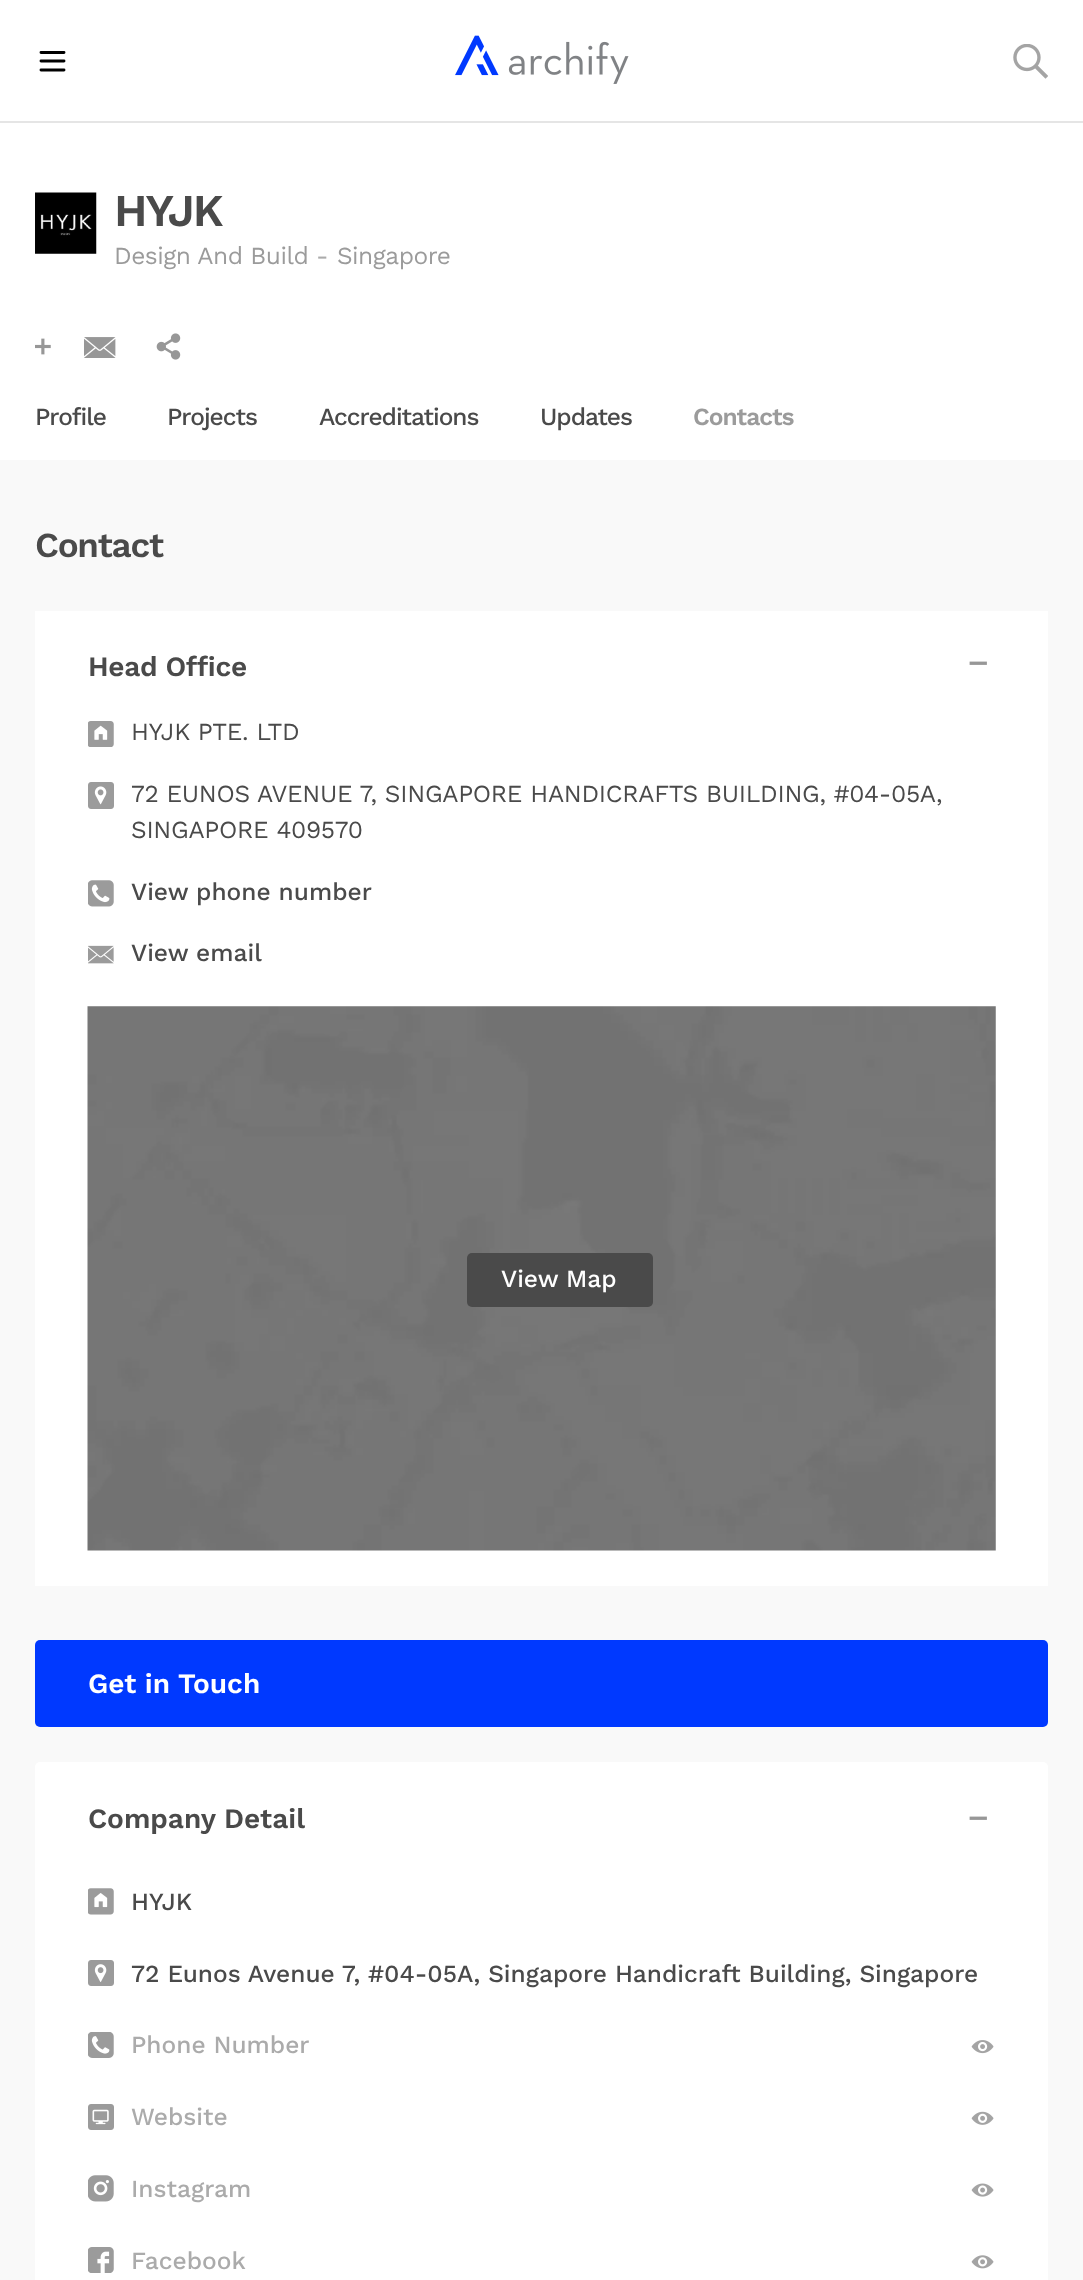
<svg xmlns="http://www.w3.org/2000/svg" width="1083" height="2280">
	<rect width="100%" height="100%" fill="#F9F9F9" />
	<rect x="0" y="0" width="1083" height="121" fill="#FFFFFF" />
	<rect x="0" y="121" width="1083" height="2" fill="#E5E5E5" />
	<path d="M41 70H64M41 61H64M41 52.5H64" fill="none" stroke="#000000" stroke-width="2.9" stroke-linecap="round" />
	<image x="455" y="35" width="174" height="49" href="assets/img1.png" />
	<image x="1013" y="44" width="35" height="35" href="assets/img2.png" />
	<rect x="0" y="123" width="1083" height="337" fill="#FFFFFF" />
	<image x="35" y="192" width="62" height="62" href="assets/img3.png" />
	<text x="114" y="226" font-family="Work Sans" font-size="45.5" font-weight="600" letter-spacing="-2" fill="#4A4A4A">HYJK</text>
	<text x="114" y="264" font-family="Work Sans" font-size="24.5" letter-spacing="-0.5" fill="#9B9B9B">Design And Build</text>
	<text x="316" y="264" font-family="Work Sans" font-size="24.5" fill="#ABABAB">-</text>
	<text x="337" y="264" font-family="Work Sans" font-size="24.5" letter-spacing="-0.5" fill="#9B9B9B">Singapore</text>
	<image x="35" y="338" width="16" height="17" href="assets/img4.png" />
	<image x="84" y="337" width="32" height="21" href="assets/img5.png" />
	<image x="156" y="333" width="25" height="27" href="assets/img6.png" />
	<g font-family="Work Sans" font-size="24.5" font-weight="500" letter-spacing="-1" fill="#4A4A4A">
		<text x="35" y="425">Profile</text>
		<text x="167" y="425">Projects</text>
		<text x="319" y="425">Accreditations</text>
		<text x="540" y="425">Updates</text>
	</g>
	<text x="693" y="425" font-family="Work Sans" font-size="24.5" font-weight="600" letter-spacing="-1" fill="#9B9B9B">Contacts</text>
	<text x="35" y="557" font-family="Work Sans" font-size="35" font-weight="600" letter-spacing="-1.25" fill="#4A4A4A">Contact</text>
	<rect x="35" y="611" width="1013" height="975" fill="#FFFFFF" />
	<text x="88" y="676" font-family="Work Sans" font-size="28" font-weight="600" letter-spacing="-0.3" fill="#4A4A4A">Head Office</text>
	<path d="M970.5 662.5H986V664H970.5Z" fill="none" stroke="#979797" stroke-width="1.8" />
	<image x="88" y="721" width="26" height="26" href="assets/img7.png" />
	<text x="131" y="740" font-family="Work Sans" font-size="24.5" letter-spacing="-0.3" fill="#4A4A4A">HYJK PTE. LTD</text>
	<image x="88" y="782" width="26" height="27" href="assets/img8.png" />
	<g font-family="Work Sans" font-size="24.5" letter-spacing="-0.3" fill="#4A4A4A">
		<text x="131" y="802">72 EUNOS AVENUE 7, SINGAPORE HANDICRAFTS BUILDING, #04-05A,</text>
		<text x="131" y="838">SINGAPORE 409570</text>
	</g>
	<image x="88" y="880" width="26" height="27" href="assets/img9.png" />
	<text x="131" y="900" font-family="Work Sans" font-size="24.5" font-weight="500" fill="#4A4A4A">View phone number</text>
	<image x="88" y="945" width="26" height="19" href="assets/img10.png" />
	<text x="131" y="961" font-family="Work Sans" font-size="24.5" font-weight="500" fill="#4A4A4A">View email</text>
	<image x="87" y="1006" width="909" height="545" href="assets/img11.png" />
	<rect x="467" y="1253" width="186" height="54" rx="5" fill="#4A4A4A" />
	<text x="501" y="1287" font-family="Work Sans" font-size="24.5" font-weight="500" fill="#FFFFFF">View Map</text>
	<rect x="35" y="1640" width="1013" height="87" rx="5" fill="#0039FF" />
	<text x="88" y="1693" font-family="Work Sans" font-size="28" font-weight="600" fill="#FFFFFF">Get in Touch</text>
	<rect x="35" y="1762" width="1013" height="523" rx="5" fill="#FFFFFF" />
	<text x="88" y="1828" font-family="Work Sans" font-size="28" font-weight="600" fill="#4A4A4A">Company Detail</text>
	<path d="M970.5 1817.5H986V1819H970.5Z" fill="none" stroke="#979797" stroke-width="1.8" />
	<image x="88" y="1888" width="26" height="27" href="assets/img12.png" />
	<text x="131" y="1910" font-family="Work Sans" font-size="24.5" font-weight="500" fill="#4A4A4A">HYJK</text>
	<image x="88" y="1960" width="26" height="26" href="assets/img13.png" />
	<text x="131" y="1982" font-family="Work Sans" font-size="24.5" font-weight="500" fill="#4A4A4A">72 Eunos Avenue 7, #04-05A, Singapore Handicraft Building, Singapore</text>
	<image x="88" y="2032" width="26" height="26" href="assets/img14.png" />
	<text x="131" y="2053" font-family="Work Sans" font-size="24.5" font-weight="500" fill="#ABABAB">Phone Number</text>
	<image x="971" y="2040" width="23" height="14" href="assets/img15.png" />
	<image x="88" y="2104" width="26" height="26" href="assets/img16.png" />
	<text x="131" y="2125" font-family="Work Sans" font-size="24.5" font-weight="500" fill="#ABABAB">Website</text>
	<image x="971" y="2111" width="23" height="14" href="assets/img17.png" />
	<image x="88" y="2175" width="26" height="27" href="assets/img18.png" />
	<text x="131" y="2197" font-family="Work Sans" font-size="24.5" font-weight="500" fill="#ABABAB">Instagram</text>
	<image x="971" y="2183" width="23" height="14" href="assets/img19.png" />
	<image x="88" y="2247" width="26" height="26" href="assets/img20.png" />
	<text x="131" y="2269" font-family="Work Sans" font-size="24.5" font-weight="500" fill="#ABABAB">Facebook</text>
	<image x="971" y="2255" width="23" height="14" href="assets/img21.png" />
</svg>
